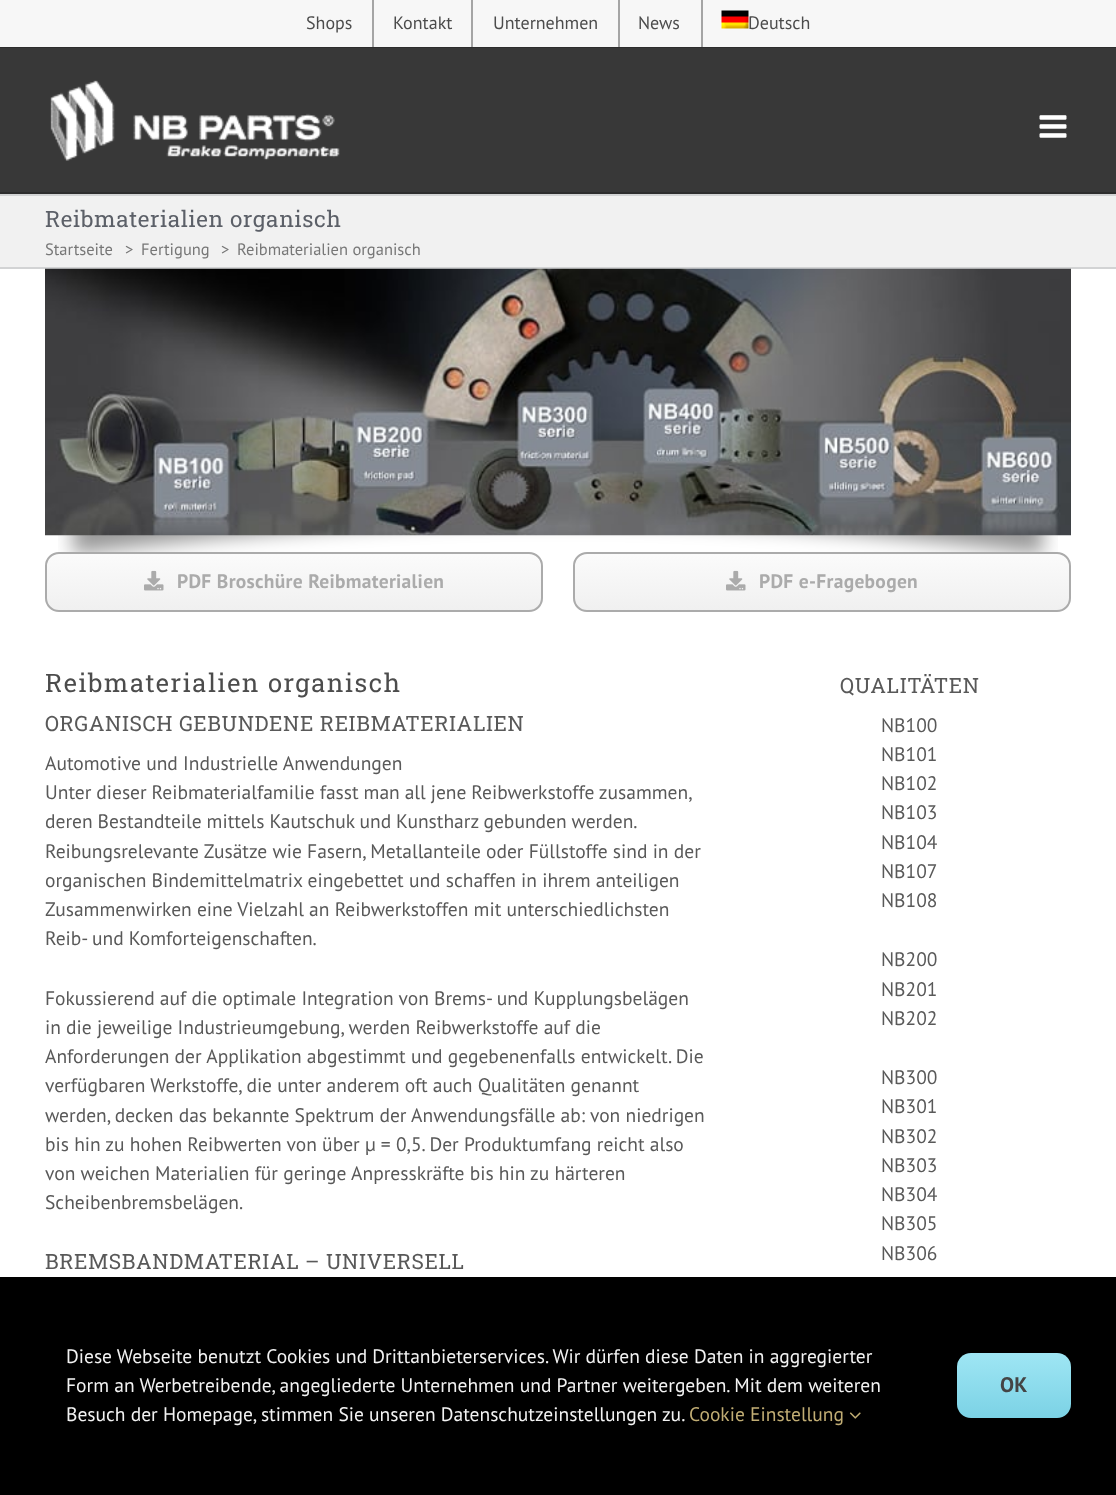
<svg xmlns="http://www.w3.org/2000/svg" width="1116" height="1495">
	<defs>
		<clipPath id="clip1"><rect x="45" y="552" width="498" height="60" rx="14" /></clipPath>
		<linearGradient id="g1" gradientUnits="userSpaceOnUse" x1="294" y1="611" x2="294" y2="554"><stop offset="0" stop-color="#F0F0F0" /><stop offset="1" stop-color="#FBFBFB" /></linearGradient>
		<clipPath id="clip2"><rect x="573" y="552" width="498" height="60" rx="14" /></clipPath>
		<linearGradient id="g2" gradientUnits="userSpaceOnUse" x1="822" y1="611" x2="822" y2="554"><stop offset="0" stop-color="#F0F0F0" /><stop offset="1" stop-color="#FBFBFB" /></linearGradient>
		<linearGradient id="g3" gradientUnits="userSpaceOnUse" x1="1014" y1="1353" x2="1014" y2="1418"><stop offset="0" stop-color="#9FE6F4" /><stop offset="1" stop-color="#7BD2E5" /></linearGradient>
	</defs>
	<rect width="100%" height="100%" fill="#FFFFFF" />
	<rect x="0" y="0" width="1116" height="47" fill="#F7F7F7" />
	<rect x="0" y="47" width="1116" height="1" fill="#2D2D2D" />
	<text x="306" y="29" font-family="PT Sans" font-size="18" fill="#4C4C4C">Shops</text>
	<rect x="372" y="0" width="2" height="47" fill="#A5A5A5" />
	<text x="393" y="29" font-family="PT Sans" font-size="18" fill="#4C4C4C">Kontakt</text>
	<rect x="471" y="0" width="2" height="47" fill="#A5A5A5" />
	<text x="493" y="29" font-family="PT Sans" font-size="18" fill="#4C4C4C">Unternehmen</text>
	<rect x="618" y="0" width="2" height="47" fill="#A5A5A5" />
	<text x="638" y="29" font-family="PT Sans" font-size="18" fill="#4C4C4C">News</text>
	<rect x="701" y="0" width="2" height="47" fill="#A5A5A5" />
	<image x="721" y="10" width="28" height="19" href="assets/img1.png" />
	<text x="748" y="29" font-family="PT Sans" font-size="18" fill="#4C4C4C">Deutsch</text>
	<rect x="0" y="48" width="1116" height="144" fill="#383838" />
	<rect x="0" y="192" width="1116" height="2" fill="#2D2D2D" />
	<image x="50" y="80" width="290" height="81" href="assets/img2.png" />
	<image x="1039" y="115" width="28" height="23" href="assets/img3.png" />
	<rect x="0" y="196" width="1116" height="71" fill="#F1F1F1" />
	<rect x="0" y="194" width="1116" height="2" fill="#D2D3D4" />
	<rect x="0" y="267" width="1116" height="2" fill="#D2D3D4" />
	<text x="45" y="227" font-family="Roboto Slab" font-size="22.5" letter-spacing="0.6" fill="#5C6068">Reibmaterialien organisch</text>
	<g font-family="PT Sans" font-size="16.5" fill="#777777">
		<text x="45" y="255">Startseite</text>
		<text x="125" y="255">&gt;</text>
		<text x="141" y="255">Fertigung</text>
		<text x="221" y="255">&gt;</text>
		<text x="237" y="255">Reibmaterialien organisch</text>
	</g>
	<image x="58" y="535" width="1000" height="17" href="assets/img5.png" />
	<image x="45" y="268" width="1026" height="268" href="assets/img4.png" />
	<g clip-path="url(#clip1)">
		<rect x="45" y="554" width="498" height="57" fill="url(#g1)" />
	</g>
	<rect x="46" y="553" width="496" height="58" rx="13" fill="none" stroke="#ABABAB" stroke-width="2" />
	<image x="144" y="570" width="20" height="21" href="assets/img6.png" />
	<text x="177" y="588" font-family="PT Sans" font-size="19.5" font-weight="700" letter-spacing="0.3" fill="#ABABAB">PDF Broschüre Reibmaterialien</text>
	<g clip-path="url(#clip2)">
		<rect x="573" y="554" width="498" height="57" fill="url(#g2)" />
	</g>
	<rect x="574" y="553" width="496" height="58" rx="13" fill="none" stroke="#ABABAB" stroke-width="2" />
	<image x="726" y="570" width="20" height="21" href="assets/img6.png" />
	<text x="759" y="588" font-family="PT Sans" font-size="19.5" font-weight="700" letter-spacing="0.3" fill="#ABABAB">PDF e-Fragebogen</text>
	<text x="45" y="692" font-family="Roboto Slab" font-size="25.5" letter-spacing="1.5" fill="#4C4C4C">Reibmaterialien organisch</text>
	<text x="45" y="731" font-family="Roboto Slab" font-size="21" letter-spacing="0.6" fill="#595959">ORGANISCH GEBUNDENE REIBMATERIALIEN</text>
	<g font-family="PT Sans" font-size="19.5" fill="#595959">
		<text x="45" y="770">Automotive und Industrielle Anwendungen</text>
		<text x="45" y="799" word-spacing="-0.25">Unter dieser Reibmaterialfamilie fasst man all jene Reibwerkstoffe zusammen,</text>
		<text x="45" y="828" word-spacing="-0.25">deren Bestandteile mittels Kautschuk und Kunstharz gebunden werden.</text>
		<text x="45" y="858">Reibungsrelevante Zusätze wie Fasern, Metallanteile oder Füllstoffe sind in der</text>
		<text x="45" y="887">organischen Bindemittelmatrix eingebettet und schaffen in ihrem anteiligen</text>
		<text x="45" y="916">Zusammenwirken eine Vielzahl an Reibwerkstoffen mit unterschiedlichsten</text>
		<text x="45" y="945">Reib- und Komforteigenschaften.</text>
		<text x="45" y="1005">Fokussierend auf die optimale Integration von Brems- und Kupplungsbelägen</text>
		<text x="45" y="1034">in die jeweilige Industrieumgebung, werden Reibwerkstoffe auf die</text>
		<text x="45" y="1063">Anforderungen der Applikation abgestimmt und gegebenenfalls entwickelt. Die</text>
		<text x="45" y="1092">verfügbaren Werkstoffe, die unter anderem oft auch Qualitäten genannt</text>
		<text x="45" y="1122">werden, decken das bekannte Spektrum der Anwendungsfälle ab: von niedrigen</text>
		<text x="45" y="1151">bis hin zu hohen Reibwerten von über µ = 0,5. Der Produktumfang reicht also</text>
		<text x="45" y="1180">von weichen Materialien für geringe Anpresskräfte bis hin zu härteren</text>
		<text x="45" y="1209">Scheibenbremsbelägen.</text>
	</g>
	<g font-family="Roboto Slab" font-size="21" letter-spacing="0.6" fill="#595959">
		<text x="45" y="1269">BREMSBANDMATERIAL – UNIVERSELL</text>
		<text x="840" y="693">QUALITÄTEN</text>
	</g>
	<g font-family="PT Sans" font-size="19.5" fill="#595959">
		<text x="881" y="732">NB100</text>
		<text x="881" y="761">NB101</text>
		<text x="881" y="790">NB102</text>
		<text x="881" y="819">NB103</text>
		<text x="881" y="849">NB104</text>
		<text x="881" y="878">NB107</text>
		<text x="881" y="907">NB108</text>
		<text x="881" y="966">NB200</text>
		<text x="881" y="996">NB201</text>
		<text x="881" y="1025">NB202</text>
		<text x="881" y="1084">NB300</text>
		<text x="881" y="1113">NB301</text>
		<text x="881" y="1143">NB302</text>
		<text x="881" y="1172">NB303</text>
		<text x="881" y="1201">NB304</text>
		<text x="881" y="1230">NB305</text>
		<text x="881" y="1260">NB306</text>
	</g>
	<rect x="0" y="1277" width="1116" height="218" fill="#000000" />
	<g font-family="PT Sans" font-size="19.5" fill="#F2F2F2">
		<text x="66" y="1363">Diese Webseite benutzt Cookies und Drittanbieterservices. Wir dürfen diese Daten in aggregierter</text>
		<text x="66" y="1392">Form an Werbetreibende, angegliederte Unternehmen und Partner weitergeben. Mit dem weiteren</text>
		<text x="66" y="1421">Besuch der Homepage, stimmen Sie unseren Datenschutzeinstellungen zu.</text>
	</g>
	<text x="689" y="1421" font-family="PT Sans" font-size="19.5" fill="#C1AD74">Cookie Einstellung</text>
	<image x="849" y="1412" width="12" height="7" href="assets/img7.png" />
	<rect x="957" y="1353" width="114" height="65" rx="14" fill="url(#g3)" />
	<text x="1000" y="1392" font-family="PT Sans" font-size="21" font-weight="700" letter-spacing="0.3" fill="#444444">OK</text>
</svg>
